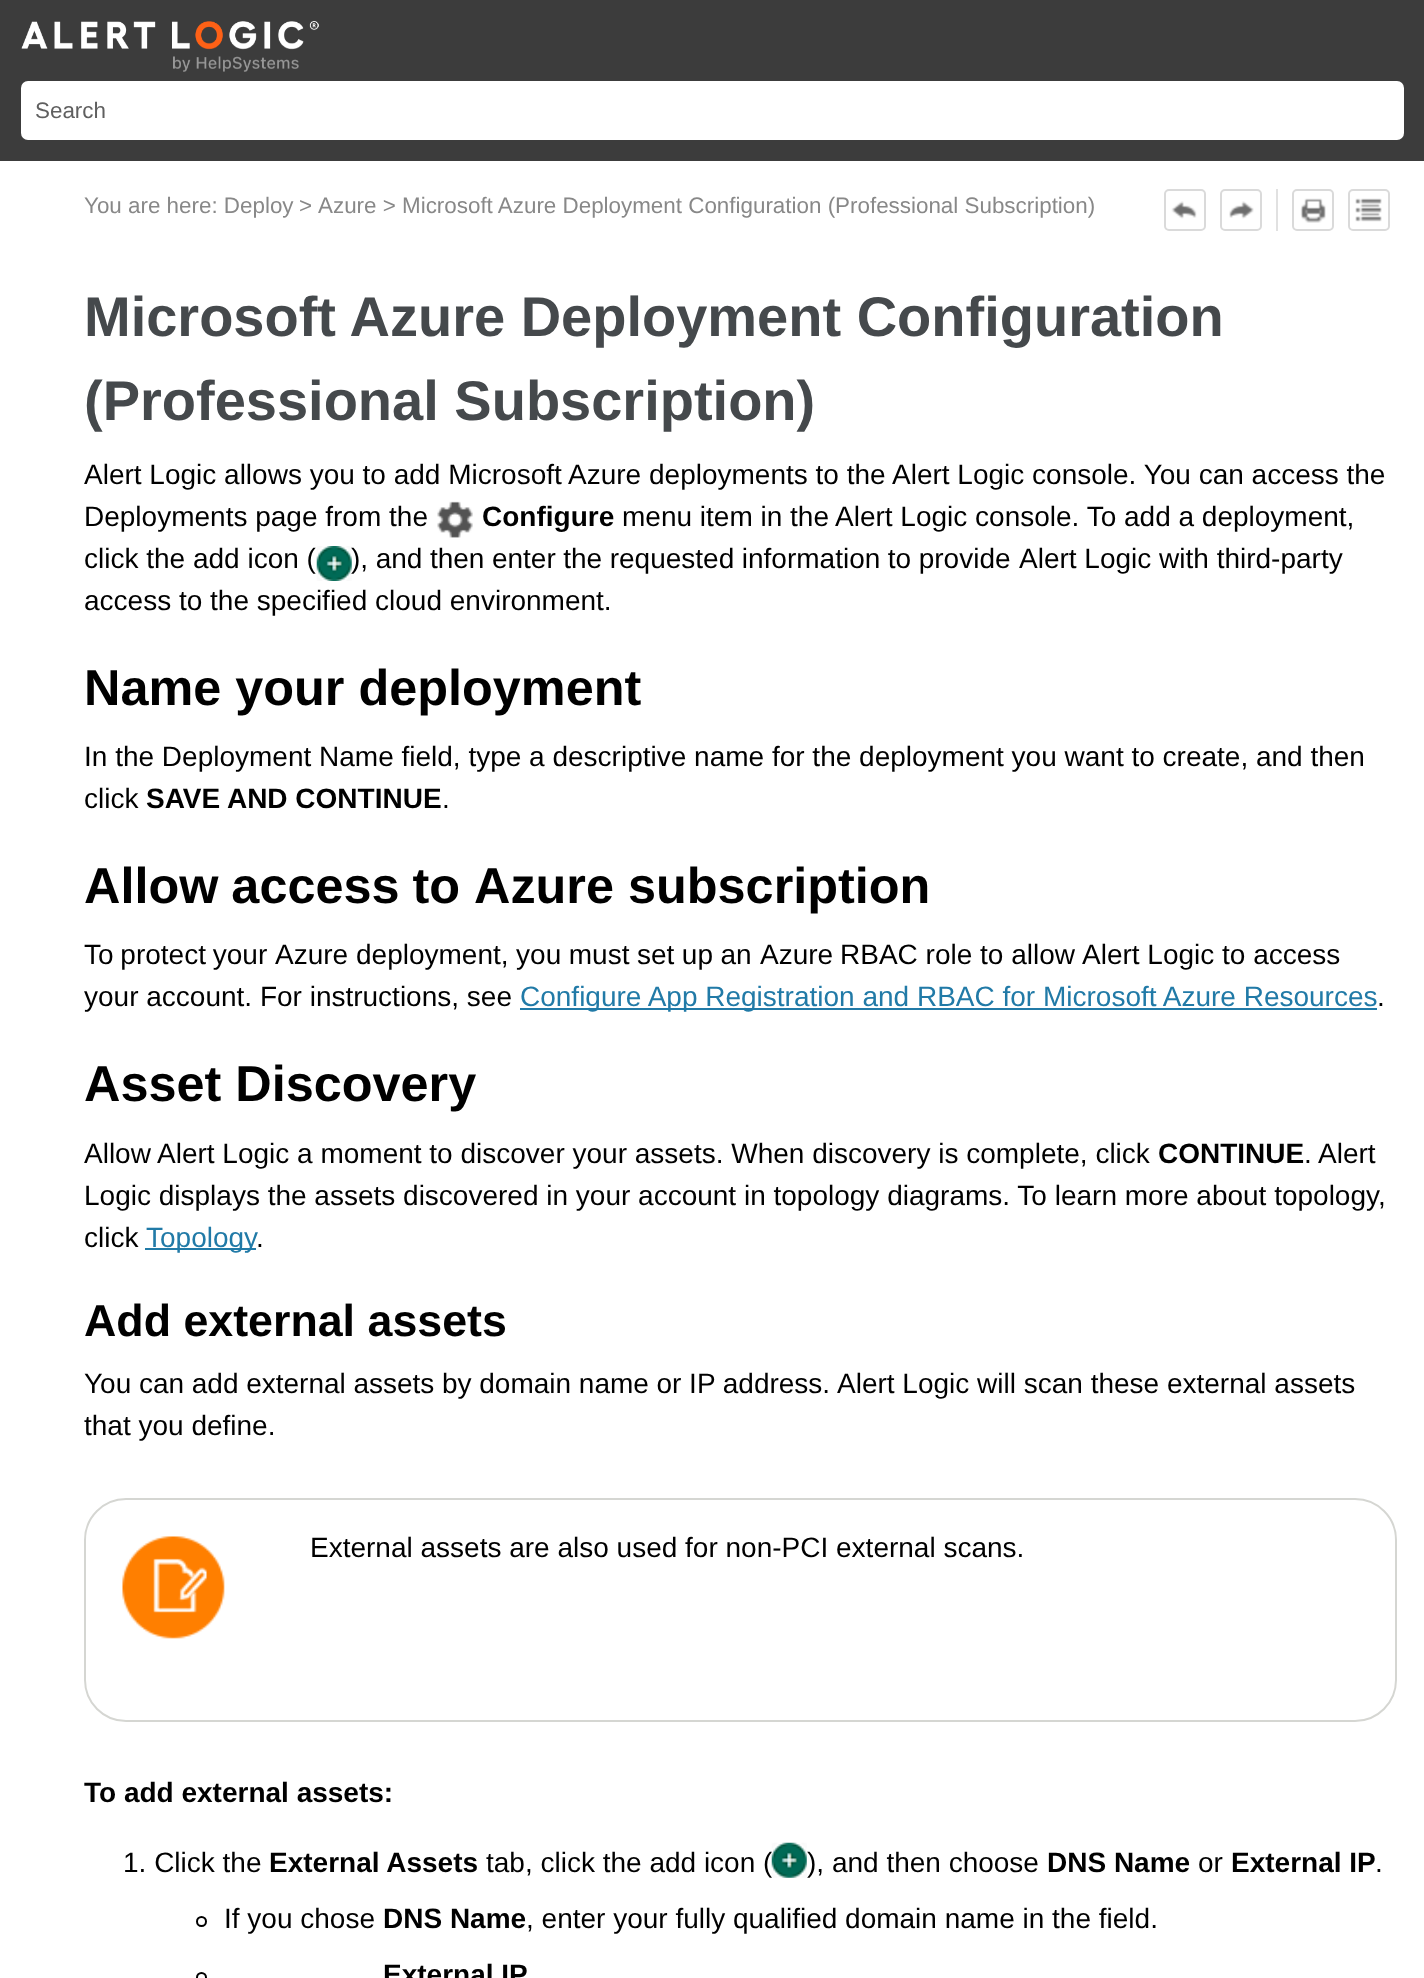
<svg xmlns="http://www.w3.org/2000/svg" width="1424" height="1978">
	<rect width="100%" height="100%" fill="#FFFFFF" />
	<rect x="0" y="0" width="1424" height="161" fill="#3C3C3C" />
	<image x="21" y="21" width="298" height="51" href="assets/img1.png" />
	<rect x="21" y="81" width="1383" height="59" rx="7" fill="#FFFFFF" />
	<text x="35" y="118" font-family="Liberation Sans" font-size="22.4" fill="#5F5F5F">Search</text>
	<g font-family="Liberation Sans" font-size="22.4" fill="#888888">
		<text x="84" y="213">You are here: Deploy</text>
		<text x="299" y="213">&gt;</text>
		<text x="318" y="213">Azure &gt; Microsoft Azure Deployment Configuration (Professional Subscription)</text>
	</g>
	<rect x="1165" y="190" width="40" height="40" rx="4" fill="none" stroke="#DADADA" stroke-width="2" />
	<image x="1171" y="201" width="26" height="18" href="assets/img2.png" />
	<rect x="1221" y="190" width="40" height="40" rx="4" fill="none" stroke="#DADADA" stroke-width="2" />
	<image x="1229" y="201" width="25" height="18" href="assets/img3.png" />
	<rect x="1276" y="189" width="2" height="42" fill="#E1E1E1" />
	<rect x="1293" y="190" width="40" height="40" rx="4" fill="none" stroke="#DADADA" stroke-width="2" />
	<image x="1300" y="198" width="26" height="25" href="assets/img4.png" />
	<rect x="1349" y="190" width="40" height="40" rx="4" fill="none" stroke="#DADADA" stroke-width="2" />
	<image x="1355" y="198" width="27" height="24" href="assets/img5.png" />
	<g font-family="Liberation Sans" font-size="56" font-weight="700" fill="#45494C">
		<text x="84" y="336">Microsoft Azure Deployment Configuration</text>
		<text x="84" y="420">(Professional Subscription)</text>
	</g>
	<g font-family="Liberation Sans" font-size="28" fill="#000000">
		<text x="84" y="484">Alert Logic allows you to add Microsoft Azure</text>
		<text x="649" y="484">deployments to the</text>
		<text x="892" y="484">Alert Logic console. You can access the</text>
		<text x="84" y="526">Deployments page from the</text>
	</g>
	<image x="437" y="501" width="36" height="37" href="assets/img6.png" />
	<text x="482" y="526" font-family="Liberation Sans" font-size="28" font-weight="700" fill="#000000">Configure</text>
	<g font-family="Liberation Sans" font-size="28" fill="#000000">
		<text x="622" y="526">menu item in the</text>
		<text x="835" y="526">Alert Logic console. To add a deployment,</text>
		<text x="84" y="568">click the add icon (</text>
	</g>
	<image x="316" y="546" width="36" height="35" href="assets/img7.png" />
	<g font-family="Liberation Sans" font-size="28" fill="#000000">
		<text x="351" y="568" word-spacing="-0.25">), and then enter the requested information to provide</text>
		<text x="1019" y="568">Alert Logic with third-party</text>
		<text x="84" y="610">access to the specified cloud environment.</text>
	</g>
	<text x="84" y="705" font-family="Liberation Sans" font-size="50.4" font-weight="700" fill="#000000">Name your deployment</text>
	<g font-family="Liberation Sans" font-size="28" fill="#000000">
		<text x="84" y="766">In the Deployment Name field, type a descriptive name for the deployment you want to create, and then</text>
		<text x="84" y="808">click</text>
	</g>
	<text x="146" y="808" font-family="Liberation Sans" font-size="28" font-weight="700" fill="#000000">SAVE AND CONTINUE</text>
	<text x="442" y="808" font-family="Liberation Sans" font-size="28" fill="#000000">.</text>
	<g font-family="Liberation Sans" font-size="50.4" font-weight="700" fill="#000000">
		<text x="84" y="903" word-spacing="-1">Allow access to</text>
		<text x="474" y="903">Azure subscription</text>
	</g>
	<g font-family="Liberation Sans" font-size="28" fill="#000000">
		<text x="84" y="964" word-spacing="-1">To protect your</text>
		<text x="275" y="964">Azure</text>
		<text x="356" y="964" word-spacing="-0.25">deployment, you must set up an</text>
		<text x="760" y="964">Azure</text>
		<text x="840" y="964">RBAC role to allow</text>
		<text x="1082" y="964">Alert Logic to access</text>
		<text x="84" y="1006">your account. For instructions, see</text>
	</g>
	<rect x="520" y="1008" width="857" height="2" fill="#217AA7" />
	<text x="520" y="1006" font-family="Liberation Sans" font-size="28" fill="#217AA7">Configure App Registration and RBAC for Microsoft Azure Resources</text>
	<text x="1377" y="1006" font-family="Liberation Sans" font-size="28" fill="#000000">.</text>
	<text x="84" y="1101" font-family="Liberation Sans" font-size="50.4" font-weight="700" fill="#000000">Asset Discovery</text>
	<g font-family="Liberation Sans" font-size="28" fill="#000000">
		<text x="84" y="1163">Allow</text>
		<text x="157" y="1163">Alert Logic a moment to discover your assets. When discovery is complete, click</text>
	</g>
	<text x="1158" y="1163" font-family="Liberation Sans" font-size="28" font-weight="700" fill="#000000">CONTINUE</text>
	<g font-family="Liberation Sans" font-size="28" fill="#000000">
		<text x="1304" y="1163">.</text>
		<text x="1318" y="1163">Alert</text>
		<text x="84" y="1205">Logic displays the assets discovered in your account in topology diagrams. To learn more about topology,</text>
		<text x="84" y="1247">click</text>
	</g>
	<rect x="145" y="1248" width="111" height="2" fill="#217AA7" />
	<text x="146" y="1247" font-family="Liberation Sans" font-size="28" fill="#217AA7">Topology</text>
	<text x="256" y="1247" font-family="Liberation Sans" font-size="28" fill="#000000">.</text>
	<text x="84" y="1336" font-family="Liberation Sans" font-size="44.75" font-weight="700" fill="#000000">Add external assets</text>
	<g font-family="Liberation Sans" font-size="28" fill="#000000">
		<text x="84" y="1393" word-spacing="-0.1">You can add external assets by domain name or IP address.</text>
		<text x="837" y="1393">Alert Logic will scan these external assets</text>
		<text x="84" y="1435">that you define.</text>
	</g>
	<image x="122" y="1536" width="103" height="103" href="assets/img8.png" />
	<rect x="85" y="1499" width="1311" height="222" rx="41" fill="none" stroke="#D5D6D2" stroke-width="2" />
	<text x="310" y="1557" font-family="Liberation Sans" font-size="28" fill="#000000">External assets are also used for non-PCI external scans.</text>
	<text x="84" y="1802" font-family="Liberation Sans" font-size="28" font-weight="700" fill="#000000">To add external assets:</text>
	<text x="123" y="1872" font-family="Liberation Sans" font-size="28" fill="#000000">1. Click the</text>
	<text x="269" y="1872" font-family="Liberation Sans" font-size="28" font-weight="700" fill="#000000">External Assets</text>
	<text x="486" y="1872" font-family="Liberation Sans" font-size="28" fill="#000000">tab, click the add icon (</text>
	<image x="771" y="1842" width="36" height="36" href="assets/img9.png" />
	<text x="807" y="1872" font-family="Liberation Sans" font-size="28" fill="#000000">), and then choose</text>
	<text x="1047" y="1872" font-family="Liberation Sans" font-size="28" font-weight="700" fill="#000000">DNS Name</text>
	<text x="1198" y="1872" font-family="Liberation Sans" font-size="28" fill="#000000">or</text>
	<text x="1231" y="1872" font-family="Liberation Sans" font-size="28" font-weight="700" fill="#000000">External IP</text>
	<text x="1375" y="1872" font-family="Liberation Sans" font-size="28" fill="#000000">.</text>
	<circle cx="201.5" cy="1921.5" r="4.5" fill="none" stroke="#000000" stroke-width="2" />
	<text x="224" y="1928" font-family="Liberation Sans" font-size="28" fill="#000000">If you chose</text>
	<text x="383" y="1928" font-family="Liberation Sans" font-size="28" font-weight="700" fill="#000000">DNS Name</text>
	<text x="526" y="1928" font-family="Liberation Sans" font-size="28" fill="#000000">, enter your fully qualified domain name in the field.</text>
	<circle cx="201.5" cy="1977.5" r="4.5" fill="none" stroke="#000000" stroke-width="2" />
	<text x="383" y="1984" font-family="Liberation Sans" font-size="28" font-weight="700" fill="#000000">External IP</text>
</svg>
